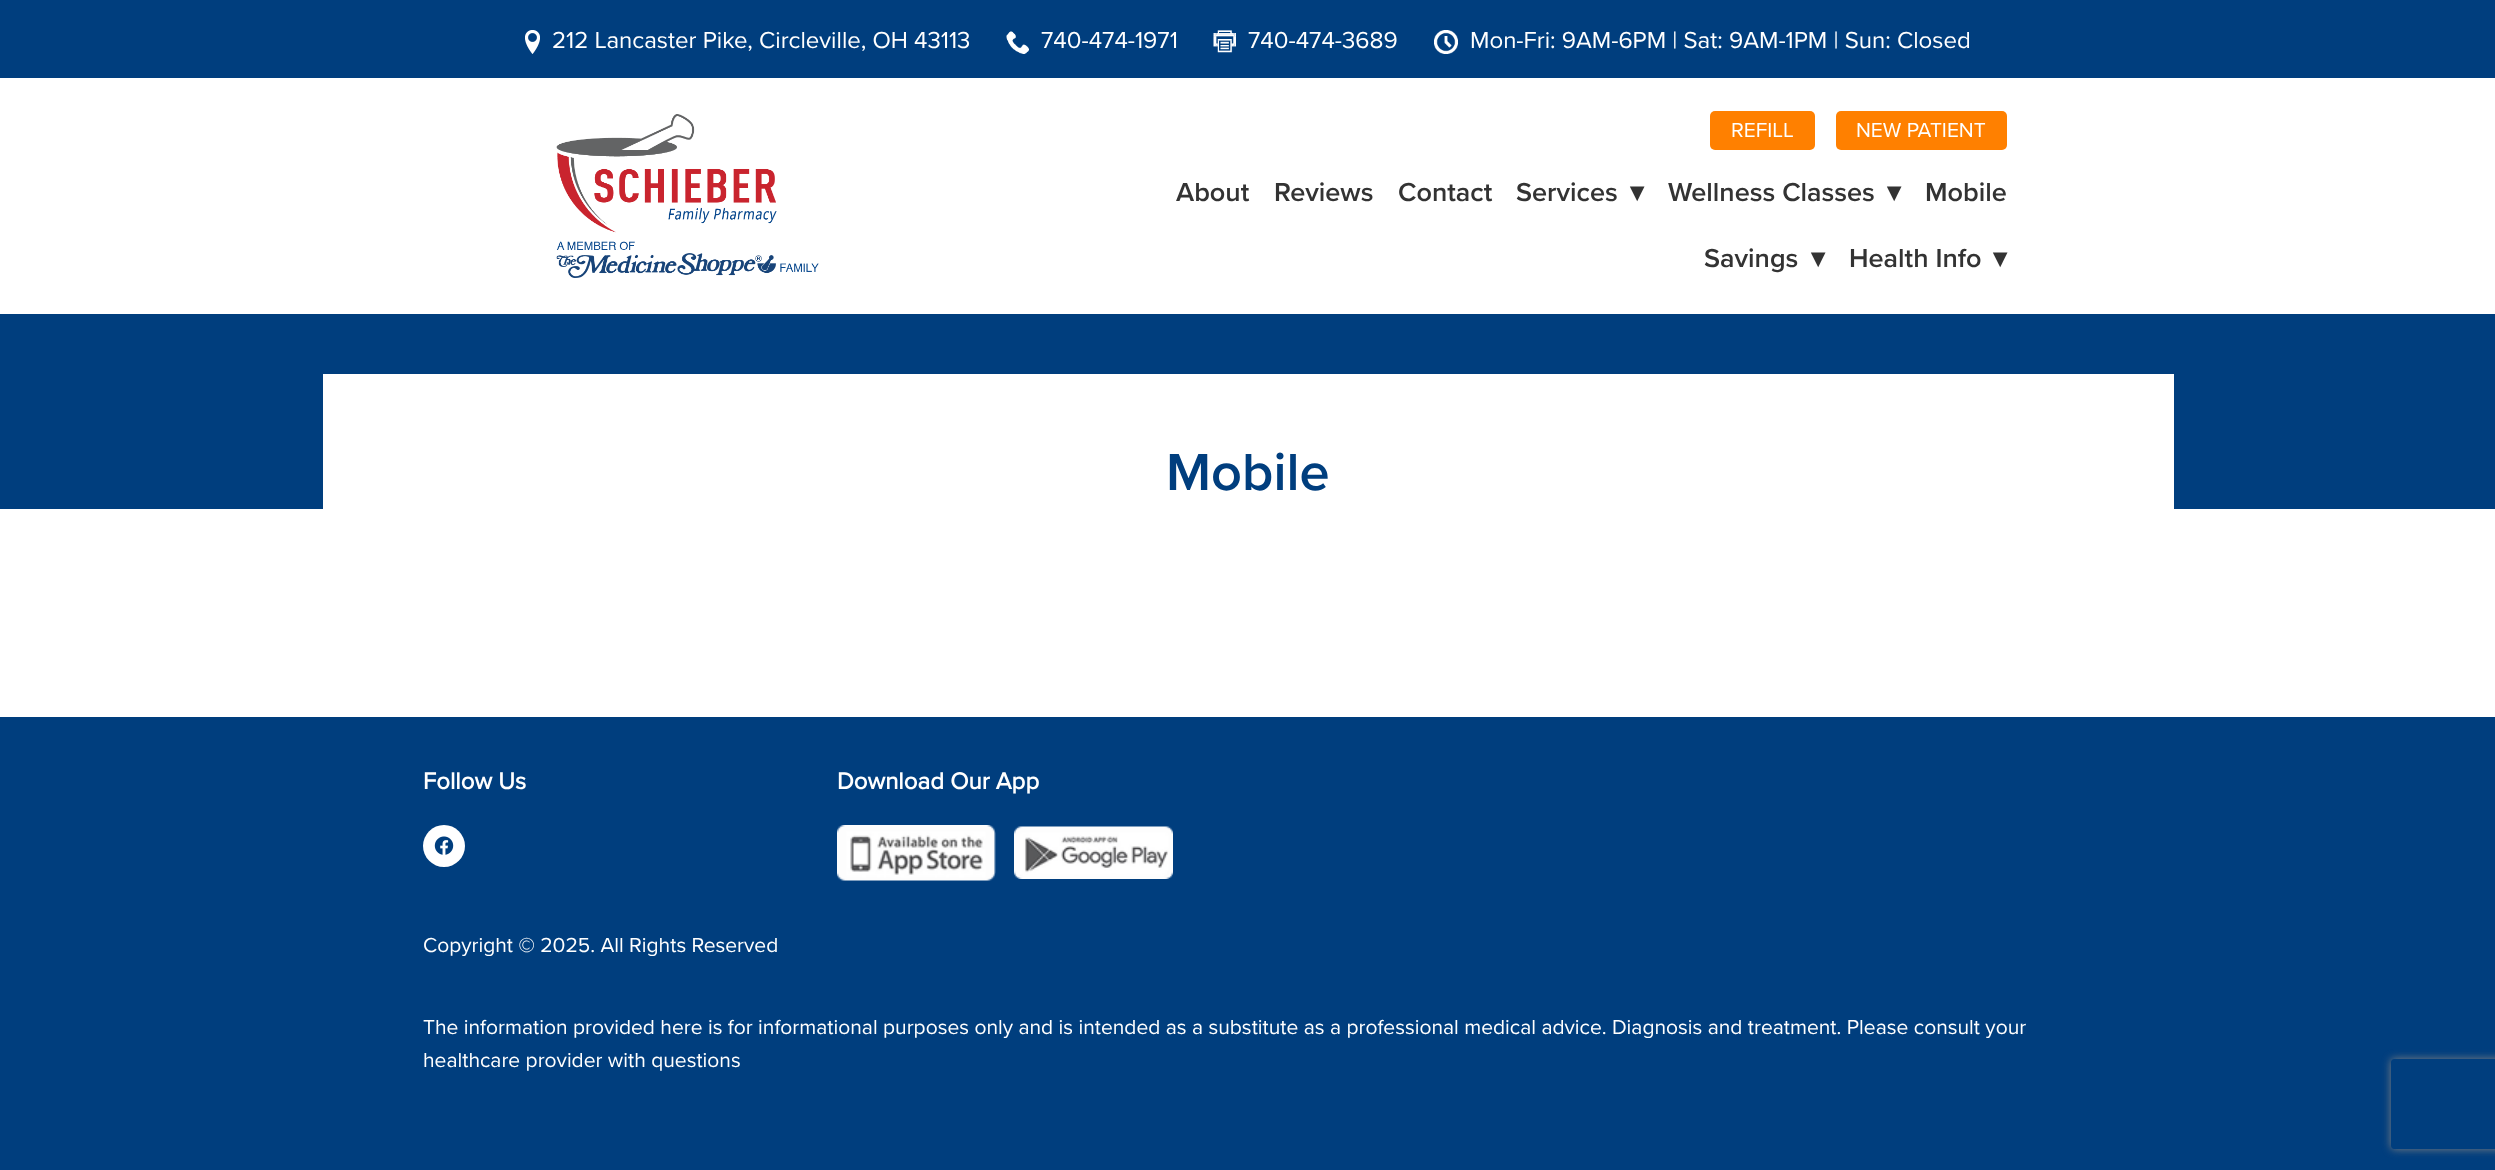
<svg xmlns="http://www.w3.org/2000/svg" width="2495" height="1170">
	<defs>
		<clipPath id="clip1"><path d="M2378 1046H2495V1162H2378ZM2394 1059H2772C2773.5 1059 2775 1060.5 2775 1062V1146C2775 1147.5 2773.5 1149 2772 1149H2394C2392.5 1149 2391 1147.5 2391 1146V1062C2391 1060.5 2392.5 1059 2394 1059Z" clip-rule="evenodd" /></clipPath>
	</defs>
	<rect width="100%" height="100%" fill="#FFFFFF" />
	<rect x="0" y="0" width="2495" height="78" fill="#003E7E" />
	<image x="525" y="30" width="15" height="24" href="assets/img1.png" />
	<text x="552" y="48" font-family="Proxima Nova" font-size="24" fill="#FFFFFF">212 Lancaster Pike, Circleville, OH 43113</text>
	<image x="1006" y="31" width="23" height="23" href="assets/img2.png" />
	<text x="1041" y="48" font-family="Proxima Nova" font-size="24" fill="#FFFFFF">740-474-1971</text>
	<image x="1213" y="30" width="23" height="23" href="assets/img3.png" />
	<text x="1248" y="48" font-family="Proxima Nova" font-size="24" fill="#FFFFFF">740-474-3689</text>
	<image x="1434" y="30" width="24" height="24" href="assets/img4.png" />
	<text x="1470" y="48" font-family="Proxima Nova" font-size="24" fill="#FFFFFF">Mon-Fri: 9AM-6PM | Sat: 9AM-1PM | Sun: Closed</text>
	<image x="556" y="114" width="263" height="164" href="assets/img5.png" />
	<rect x="1710" y="111" width="105" height="39" rx="5" fill="#FF8000" />
	<text x="1731" y="137" font-family="Proxima Nova" font-size="21" fill="#FFFFFF">REFILL</text>
	<rect x="1836" y="111" width="171" height="39" rx="5" fill="#FF8000" />
	<text x="1856" y="137" font-family="Proxima Nova" font-size="21" fill="#FFFFFF">NEW PATIENT</text>
	<g font-family="Proxima Nova" font-size="27" font-weight="600" fill="#333333">
		<text x="1176" y="201">About</text>
		<text x="1274" y="201">Reviews</text>
		<text x="1398" y="201">Contact</text>
		<text x="1516" y="201">Services</text>
	</g>
	<text x="1630" y="201" font-family="DejaVu Sans" font-size="27" font-weight="700" fill="#333333">▾</text>
	<text x="1668" y="201" font-family="Proxima Nova" font-size="27" font-weight="600" fill="#333333">Wellness Classes</text>
	<text x="1887" y="201" font-family="DejaVu Sans" font-size="27" font-weight="700" fill="#333333">▾</text>
	<g font-family="Proxima Nova" font-size="27" font-weight="600" fill="#333333">
		<text x="1925" y="201">Mobile</text>
		<text x="1704" y="267">Savings</text>
	</g>
	<text x="1811" y="267" font-family="DejaVu Sans" font-size="27" font-weight="700" fill="#333333">▾</text>
	<text x="1849" y="267" font-family="Proxima Nova" font-size="27" font-weight="600" fill="#333333">Health Info</text>
	<text x="1993" y="267" font-family="DejaVu Sans" font-size="27" font-weight="700" fill="#333333">▾</text>
	<rect x="0" y="314" width="2495" height="195" fill="#003E7E" />
	<rect x="323" y="374" width="1851" height="135" fill="#FFFFFF" />
	<text x="1166" y="490" font-family="Proxima Nova" font-size="54" font-weight="600" fill="#003E7E">Mobile</text>
	<rect x="0" y="717" width="2495" height="453" fill="#003E7E" />
	<text x="423" y="789" font-family="Proxima Nova" font-size="24" font-weight="700" fill="#FFFFFF">Follow Us</text>
	<circle cx="444" cy="846" r="21" fill="#FFFFFF" />
	<image x="434" y="836" width="20" height="19" href="assets/img6.png" />
	<text x="837" y="789" font-family="Proxima Nova" font-size="24" font-weight="700" fill="#FFFFFF">Download Our App</text>
	<image x="837" y="825" width="159" height="56" href="assets/img7.png" />
	<image x="1014" y="826" width="159" height="53" href="assets/img8.png" />
	<g font-family="Proxima Nova" font-size="21" fill="#FFFFFF">
		<text x="423" y="952">Copyright © 2025. All Rights Reserved</text>
		<text x="423" y="1034">The information provided here is for informational purposes only and is intended as a substitute as a professional medical advice. Diagnosis and treatment. Please consult your</text>
		<text x="423" y="1067">healthcare provider with questions</text>
	</g>
	<g clip-path="url(#clip1)">
		<rect x="2391" y="1059" width="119" height="90" rx="3" fill="#808080" filter="blur(4px)" />
	</g>
</svg>
